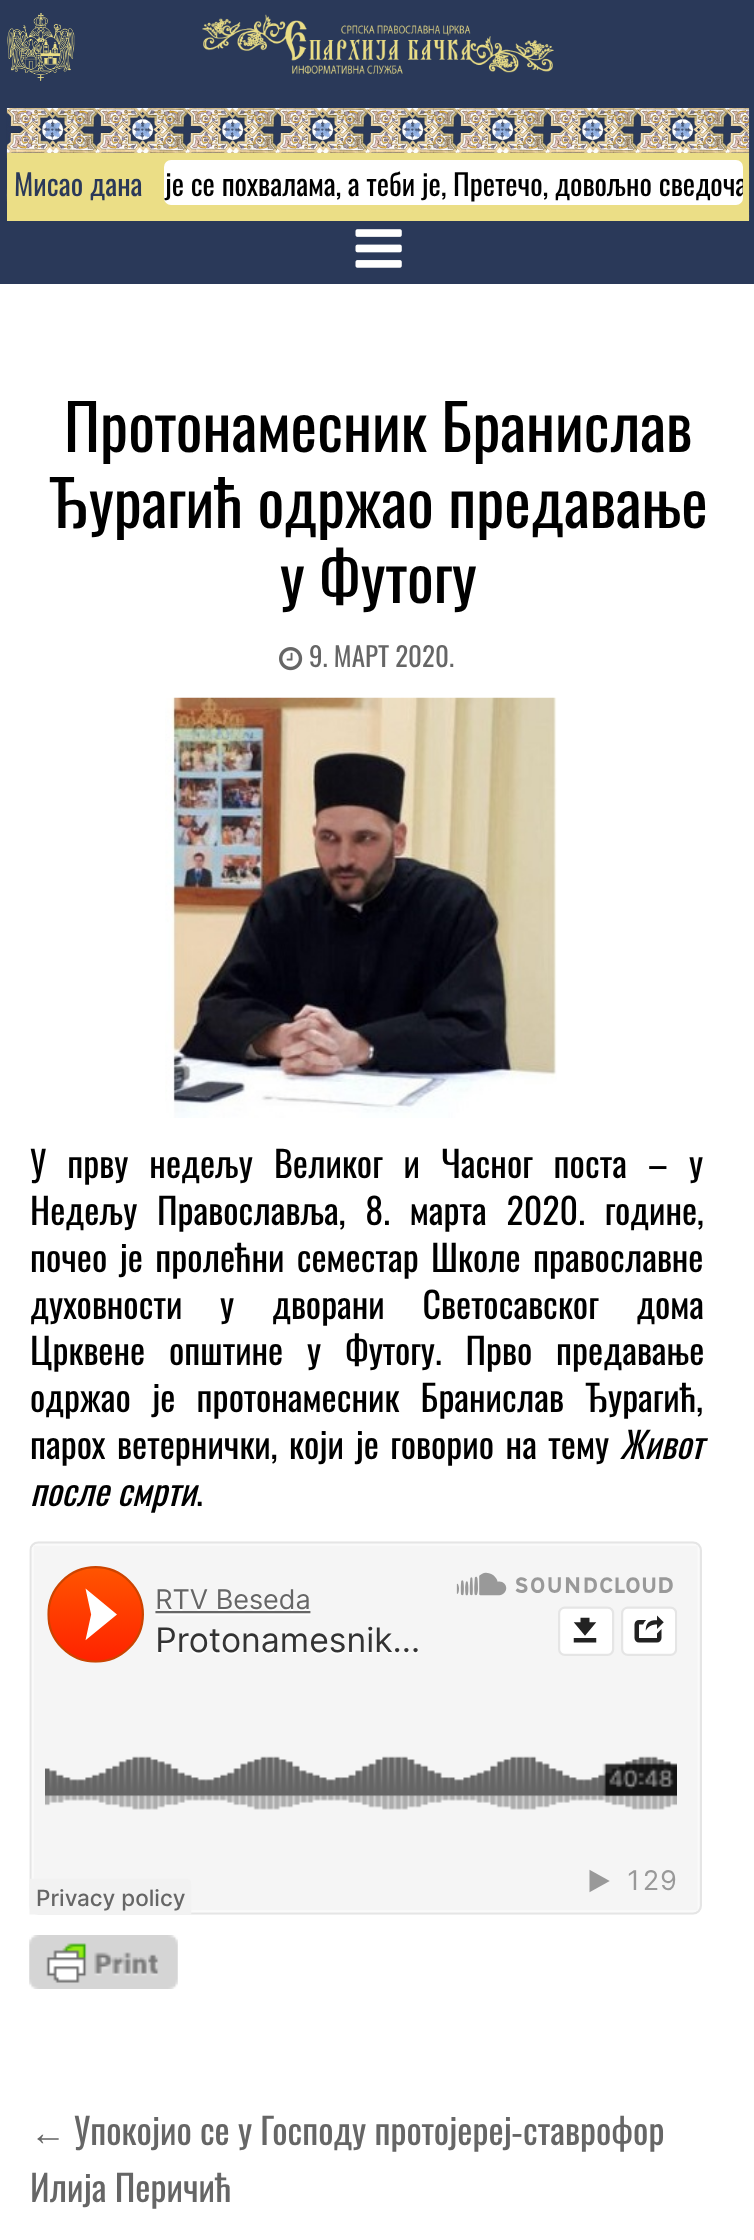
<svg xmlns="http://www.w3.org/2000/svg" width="754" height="2240">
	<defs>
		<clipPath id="clip1"><rect x="164" y="160" width="579" height="45" rx="7" /></clipPath>
	</defs>
	<rect width="100%" height="100%" fill="#FFFFFF" />
	<rect x="0" y="0" width="754" height="284" fill="#2A3959" />
	<image x="7" y="13" width="68" height="68" href="assets/img1.png" />
	<image x="202" y="14" width="352" height="61" href="assets/img2.png" />
	<image x="6" y="108" width="744" height="112" href="assets/img3.png" />
	<rect x="7" y="153" width="742" height="68" fill="#EBDE86" />
	<text x="14" y="196" font-family="Oswald" font-size="29.25" fill="#2A3959">Mисао дана</text>
	<rect x="164" y="160" width="579" height="45" rx="7" fill="#FFFFFF" />
	<g clip-path="url(#clip1)">
		<text x="165" y="196" font-family="Oswald" font-size="29.25" fill="#000000">је се похвалама, а теби је, Претечо, довољно сведоча</text>
	</g>
	<image x="355" y="229" width="47" height="39" href="assets/img4.png" />
	<g font-family="Oswald" font-size="63" fill="#000000">
		<text x="64" y="452">Протонамесник Бранислав</text>
		<text x="49" y="528">Ђурагић одржао предавање</text>
		<text x="280" y="603">у Футогу</text>
	</g>
	<image x="279" y="647" width="24" height="24" href="assets/img5.png" />
	<text x="309" y="667" font-family="Oswald" font-size="27" fill="#666666">9. МАРТ 2020.</text>
	<image x="165" y="697" width="392" height="421" href="assets/img6.png" />
	<g font-family="Oswald" font-size="36" fill="#000000">
		<text x="30" y="1178" word-spacing="12.75">У прву недељу Великог и Часног поста – у</text>
		<text x="30" y="1225" word-spacing="11.5">Недељу Православља, 8. марта 2020. године,</text>
		<text x="30" y="1272" word-spacing="4">почео је пролећни семестар Школе православне</text>
		<text x="30" y="1319" word-spacing="29.5">духовности у дворани Светосавског дома</text>
		<text x="30" y="1365" word-spacing="15.5">Црквене општине у Футогу. Прво предавање</text>
		<text x="30" y="1412" word-spacing="13">одржао је протонамесник Бранислав Ђурагић,</text>
		<text x="30" y="1459" word-spacing="3.25">парох ветернички, који је говорио на тему</text>
	</g>
	<g font-family="Oswald" font-size="36" font-style="italic" fill="#000000">
		<text x="620" y="1459">Живот</text>
		<text x="30" y="1506">после смрти</text>
	</g>
	<text x="196" y="1506" font-family="Oswald" font-size="36" fill="#000000">.</text>
	<image x="29" y="1541" width="673" height="374" href="assets/img7.png" />
	<image x="29" y="1935" width="149" height="54" href="assets/img8.png" />
	<text x="30" y="2145" font-family="Liberation Sans" font-size="36" fill="#666666">←</text>
	<text x="74" y="2145" font-family="Oswald" font-size="36" fill="#666666">Упокојио се у Господу протојереј</text>
	<text x="511" y="2145" font-family="Liberation Sans" font-size="36" fill="#666666">-</text>
	<g font-family="Oswald" font-size="36" fill="#666666">
		<text x="523" y="2145">ставрофор</text>
		<text x="30" y="2202">Илија Перичић</text>
	</g>
</svg>
